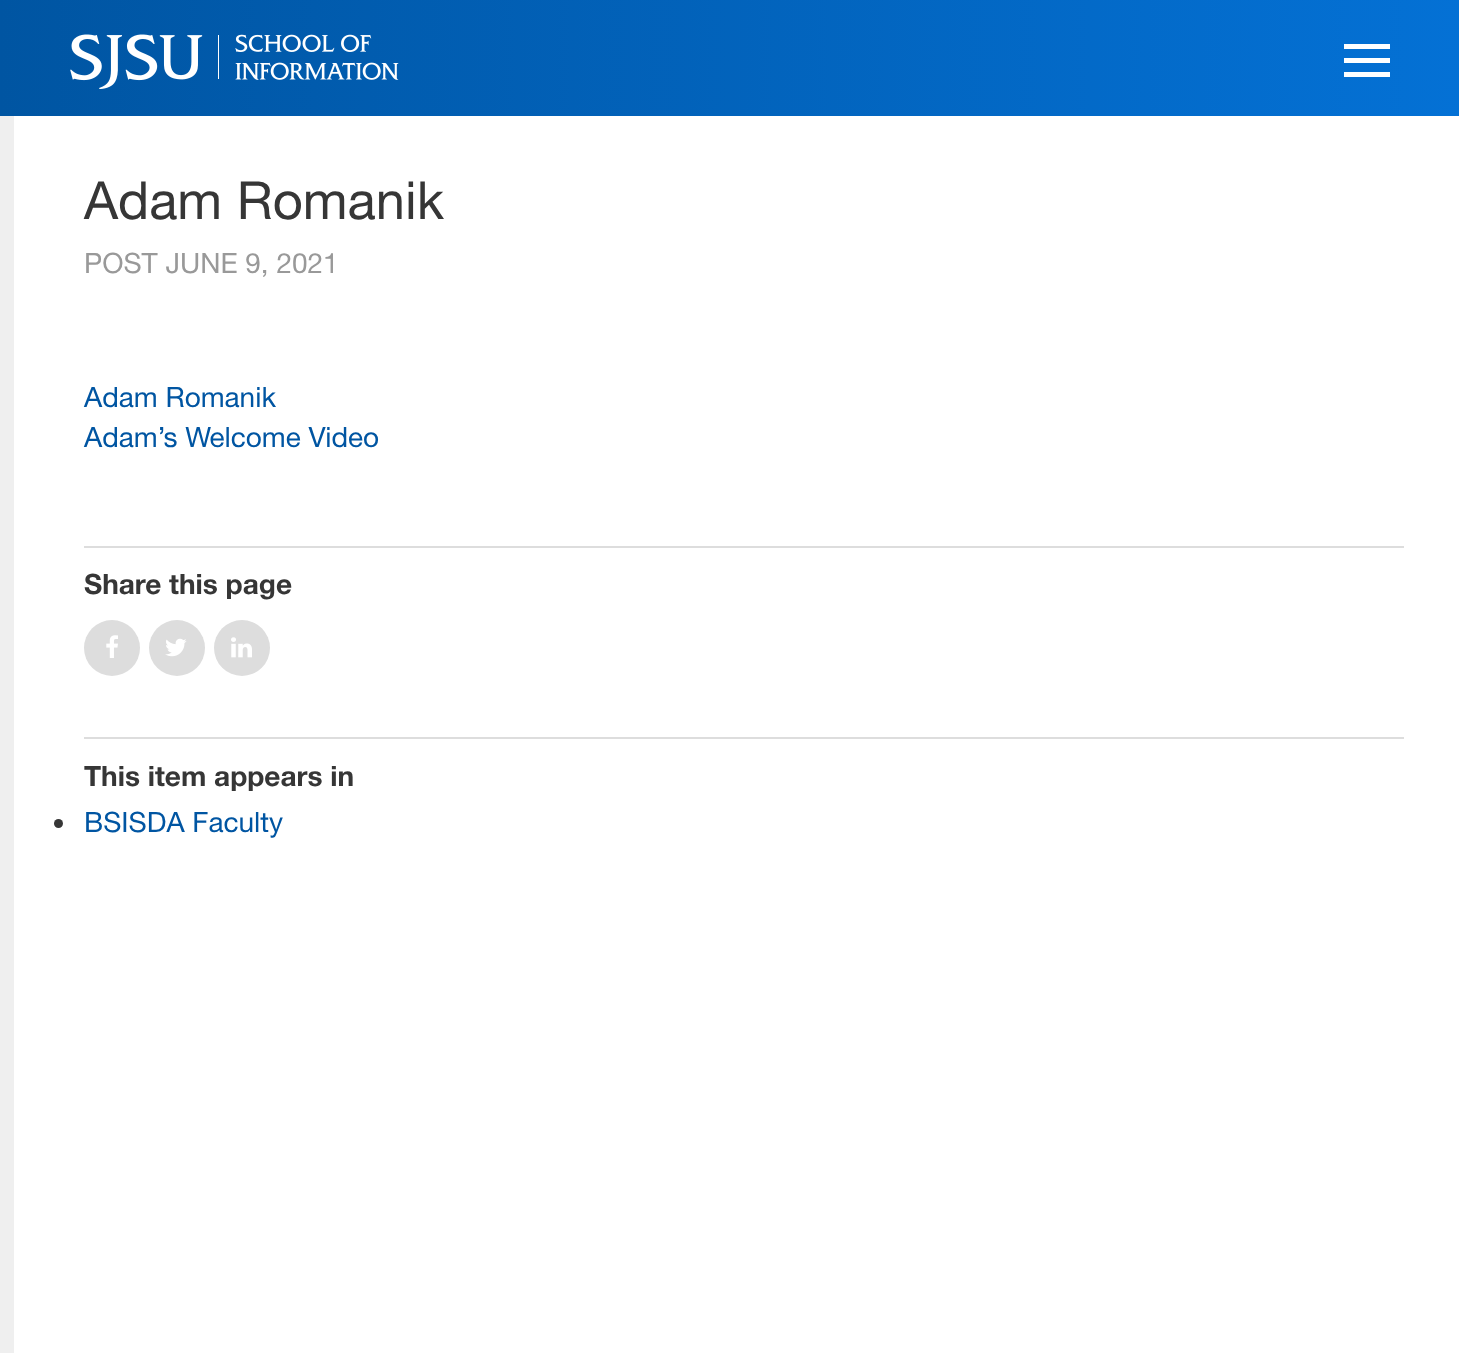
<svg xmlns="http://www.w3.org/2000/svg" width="1459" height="1353">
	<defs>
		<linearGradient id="g1" gradientUnits="userSpaceOnUse" x1="0" y1="58" x2="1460" y2="58"><stop offset="0" stop-color="#0055A2" /><stop offset="1" stop-color="#0471D5" /></linearGradient>
	</defs>
	<rect width="100%" height="100%" fill="#EFEFEF" />
	<rect x="14" y="116" width="1445" height="1237" fill="#FFFFFF" />
	<rect x="0" y="0" width="1459" height="116" fill="url(#g1)" />
	<image x="70" y="34" width="329" height="55" href="assets/img1.png" />
	<rect x="1344" y="58" width="46" height="5" fill="#FFFFFF" />
	<rect x="1344" y="44" width="46" height="5" fill="#FFFFFF" />
	<rect x="1344" y="72" width="46" height="5" fill="#FFFFFF" />
	<text x="84" y="219" font-family="'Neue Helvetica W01'" font-size="52.5" fill="#363636">Adam Romanik</text>
	<text x="84" y="273" font-family="'Neue Helvetica W01'" font-size="28" fill="#999999">POST JUNE 9, 2021</text>
	<g font-family="'Neue Helvetica W01'" font-size="28" fill="#0055A2">
		<text x="84" y="407">Adam Romanik</text>
		<text x="84" y="447">Adam’s Welcome Video</text>
	</g>
	<rect x="84" y="546" width="1320" height="2" fill="#DDDDDD" />
	<text x="84" y="594" font-family="'Neue Helvetica W01'" font-size="28" font-weight="700" fill="#363636">Share this page</text>
	<circle cx="112" cy="648" r="28" fill="#DDDDDD" />
	<image x="106" y="635" width="12" height="23" href="assets/img2.png" />
	<circle cx="177" cy="648" r="28" fill="#DDDDDD" />
	<image x="165" y="638" width="22" height="19" href="assets/img3.png" />
	<circle cx="242" cy="648" r="28" fill="#DDDDDD" />
	<image x="231" y="637" width="21" height="21" href="assets/img4.png" />
	<rect x="84" y="737" width="1320" height="2" fill="#DDDDDD" />
	<text x="84" y="786" font-family="'Neue Helvetica W01'" font-size="28" font-weight="700" fill="#363636">This item appears in</text>
	<circle cx="58.5" cy="823.5" r="4.5" fill="#363636" />
	<text x="84" y="832" font-family="'Neue Helvetica W01'" font-size="28" fill="#0055A2">BSISDA Faculty</text>
</svg>
